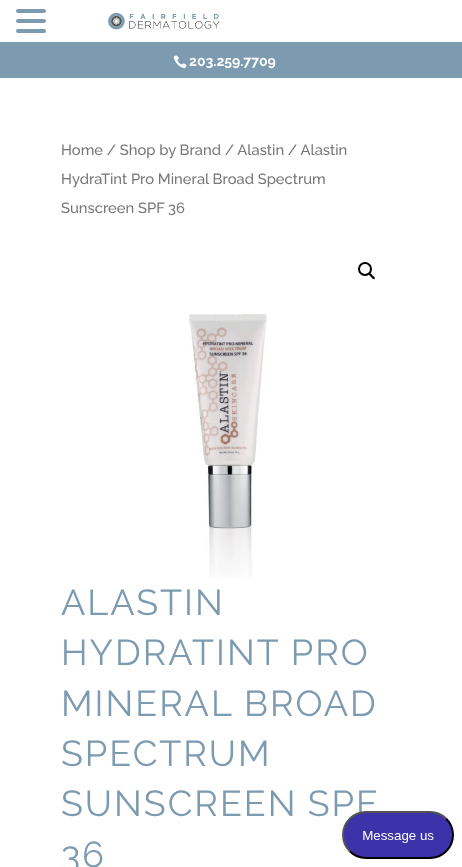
<svg xmlns="http://www.w3.org/2000/svg" width="462" height="867">
	<rect width="100%" height="100%" fill="#FFFFFF" />
	<rect x="16" y="9" width="30" height="4" rx="2" fill="#7C9AB0" />
	<rect x="16" y="19" width="30" height="4" rx="2" fill="#7C9AB0" />
	<rect x="16" y="29" width="30" height="4" rx="2" fill="#7C9AB0" />
	<image x="108" y="12" width="112" height="18" href="assets/img1.png" />
	<rect x="0" y="42" width="462" height="36" fill="#7C9AB0" />
	<image x="173" y="55" width="14" height="14" href="assets/img2.png" />
	<text x="189" y="66" font-family="Raleway" font-size="14" font-weight="100" fill="#FFFFFF">203.259.7709</text>
	<g font-family="'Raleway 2'" font-size="14.75" font-weight="100" fill="#767676">
		<text x="61" y="155">Home / Shop by Brand / Alastin / Alastin</text>
		<text x="61" y="184">HydraTint Pro Mineral Broad Spectrum</text>
		<text x="61" y="213">Sunscreen SPF 36</text>
	</g>
	<circle cx="365" cy="269" r="6" fill="none" stroke="#000000" stroke-width="2" />
	<path d="M369 273.5C370 272 372 275 372.5 275.5C373 276 376 277.5 374.5 279C373.5 280 371.5 277.5 371 277C370.5 276 368 274.5 369 273.5Z" fill="#000000" />
	<image x="188" y="314" width="79" height="263" href="assets/img3.png" />
	<g font-family="'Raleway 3'" font-size="36" font-weight="100" letter-spacing="2" fill="#7C9AB0">
		<text x="61" y="615">ALASTIN</text>
		<text x="61" y="665">HYDRATINT PRO</text>
		<text x="61" y="716">MINERAL BROAD</text>
		<text x="61" y="766">SPECTRUM</text>
		<text x="61" y="816" word-spacing="-1">SUNSCREEN SPF</text>
		<text x="61" y="867">36</text>
	</g>
	<image x="342" y="811" width="112" height="48" href="assets/img4.png" />
</svg>
